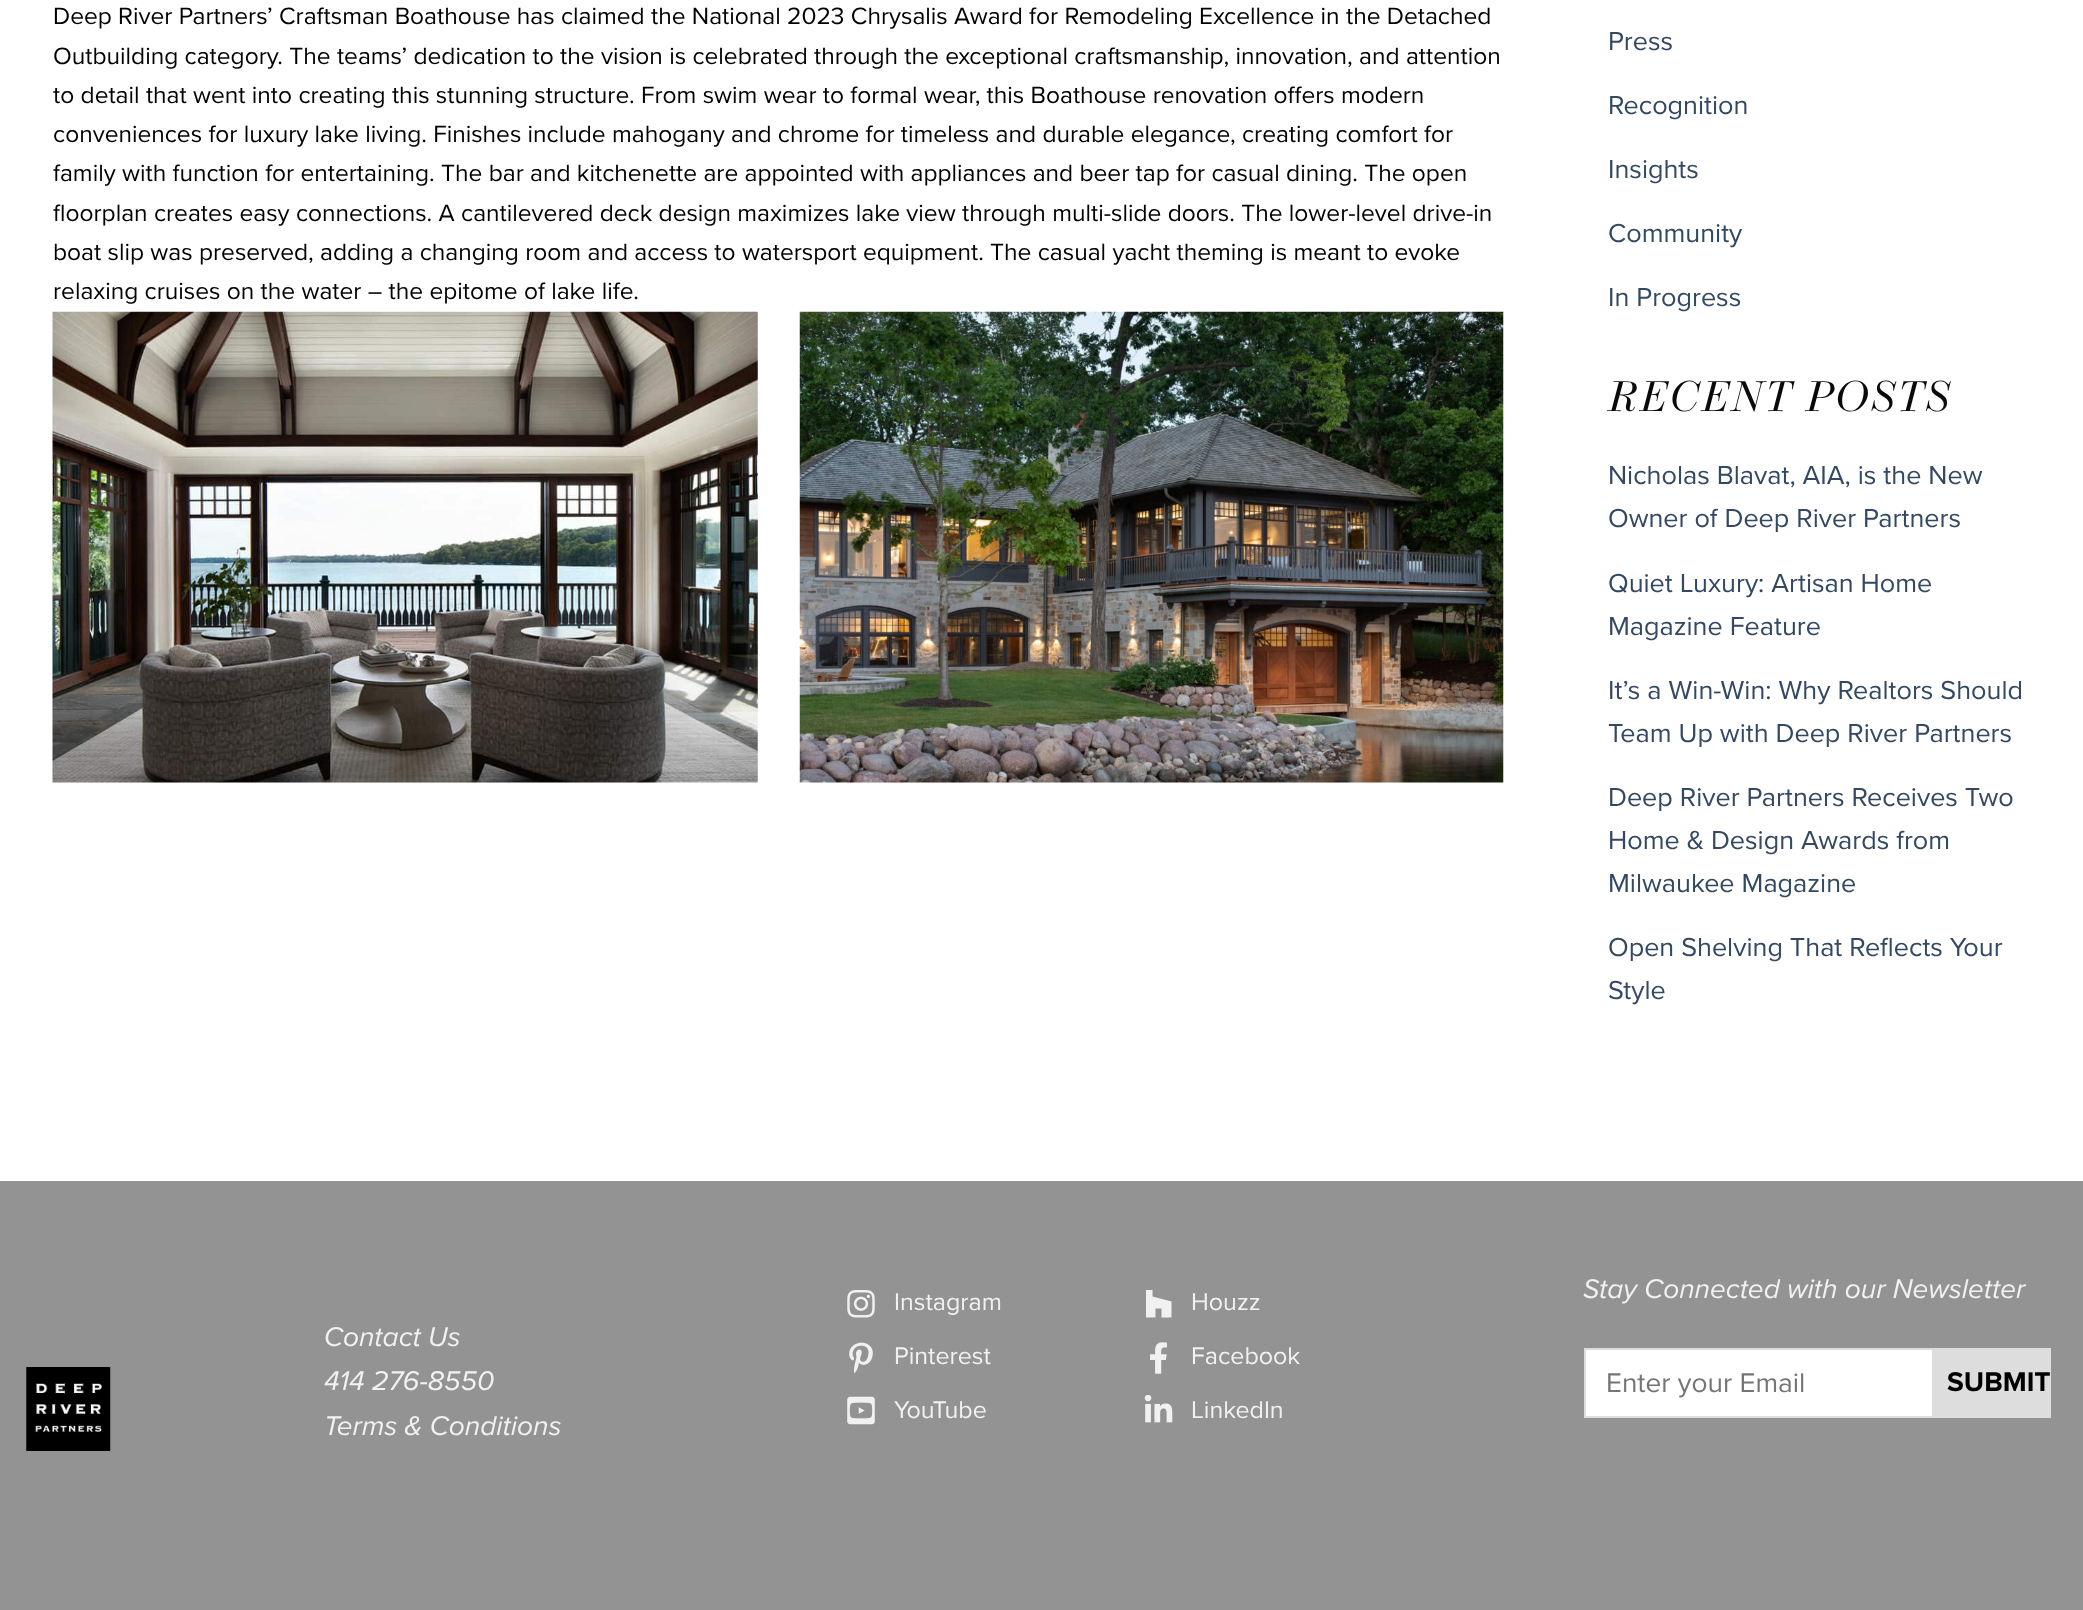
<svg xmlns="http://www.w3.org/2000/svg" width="2083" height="1610">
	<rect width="100%" height="100%" fill="#FFFFFF" />
	<g font-family="Proxima Nova" font-size="24.5" fill="#000000">
		<text x="53" y="24">Deep River Partners’ Craftsman Boathouse has claimed the National 2023 Chrysalis Award for Remodeling Excellence in the Detached</text>
		<text x="53" y="64">Outbuilding category. The teams’ dedication to the vision is celebrated through the exceptional craftsmanship, innovation, and attention</text>
		<text x="53" y="103">to detail that went into creating this stunning structure. From swim wear to formal wear, this Boathouse renovation offers modern</text>
		<text x="53" y="142">conveniences for luxury lake living. Finishes include mahogany and chrome for timeless and durable elegance, creating comfort for</text>
		<text x="53" y="181">family with function for entertaining. The bar and kitchenette are appointed with appliances and beer tap for casual dining. The open</text>
		<text x="53" y="221">floorplan creates easy connections. A cantilevered deck design maximizes lake view through multi-slide doors. The lower-level drive-in</text>
		<text x="53" y="260">boat slip was preserved, adding a changing room and access to watersport equipment. The casual yacht theming is meant to evoke</text>
		<text x="53" y="299">relaxing cruises on the water – the epitome of lake life.</text>
	</g>
	<image x="52" y="311" width="706" height="472" href="assets/img1.png" />
	<image x="799" y="311" width="705" height="472" href="assets/img2.png" />
	<g font-family="Proxima Nova" font-size="27" fill="#334862">
		<text x="1608" y="50">Press</text>
		<text x="1608" y="114">Recognition</text>
		<text x="1608" y="178">Insights</text>
		<text x="1608" y="242">Community</text>
		<text x="1608" y="306">In Progress</text>
	</g>
	<text x="1608" y="411" font-family="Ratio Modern" font-size="41.75" font-style="italic" letter-spacing="2" fill="#0A0A0A">RECENT POSTS</text>
	<g font-family="Proxima Nova" font-size="27" fill="#334862">
		<text x="1608" y="484">Nicholas Blavat, AIA, is the New</text>
		<text x="1608" y="527">Owner of Deep River Partners</text>
		<text x="1608" y="592">Quiet Luxury: Artisan Home</text>
		<text x="1608" y="635">Magazine Feature</text>
		<text x="1608" y="699">It’s a Win-Win: Why Realtors Should</text>
		<text x="1608" y="742">Team Up with Deep River Partners</text>
		<text x="1608" y="806">Deep River Partners Receives Two</text>
		<text x="1608" y="849">Home &amp; Design Awards from</text>
		<text x="1608" y="892">Milwaukee Magazine</text>
		<text x="1608" y="956">Open Shelving That Reflects Your</text>
		<text x="1608" y="999">Style</text>
	</g>
	<rect x="0" y="1181" width="2083" height="429" fill="#939393" />
	<image x="26" y="1367" width="85" height="84" href="assets/img3.png" />
	<g font-family="Proxima Nova" font-size="28" font-style="italic" fill="#F1F1F1">
		<text x="324" y="1346">Contact Us</text>
		<text x="324" y="1390">414 276-8550</text>
		<text x="324" y="1435">Terms &amp; Conditions</text>
	</g>
	<image x="847" y="1290" width="28" height="28" href="assets/img4.png" />
	<text x="894" y="1310" font-family="Proxima Nova" font-size="25" fill="#F1F1F1">Instagram</text>
	<image x="849" y="1342" width="24" height="32" href="assets/img5.png" />
	<text x="894" y="1364" font-family="Proxima Nova" font-size="25" fill="#F1F1F1">Pinterest</text>
	<image x="847" y="1396" width="28" height="29" href="assets/img6.png" />
	<text x="894" y="1418" font-family="Proxima Nova" font-size="25" fill="#F1F1F1">YouTube</text>
	<path d="M1161.5 1308.5H1155.5V1317.5H1146V1290H1152.5V1296.5L1171.5 1301.5V1317.5H1161.5Z" fill="#F1F1F1" />
	<text x="1191" y="1310" font-family="Proxima Nova" font-size="25" fill="#F1F1F1">Houzz</text>
	<image x="1150" y="1342" width="17" height="32" href="assets/img7.png" />
	<text x="1191" y="1364" font-family="Proxima Nova" font-size="25" fill="#F1F1F1">Facebook</text>
	<image x="1144" y="1395" width="29" height="28" href="assets/img8.png" />
	<text x="1191" y="1418" font-family="Proxima Nova" font-size="25" fill="#F1F1F1">LinkedIn</text>
	<text x="1583" y="1298" font-family="Proxima Nova" font-size="28" font-style="italic" fill="#F1F1F1">Stay Connected with our Newsletter</text>
	<rect x="1585" y="1349" width="348" height="68" fill="#FFFFFF" stroke="#DDDDDD" stroke-width="2" />
	<text x="1606" y="1392" font-family="Proxima Nova" font-size="28" fill="#757575">Enter your Email</text>
	<rect x="1934" y="1348" width="117" height="70" fill="#DDDDDD" />
	<text x="1947" y="1391" font-family="Proxima Nova" font-size="28" font-weight="700" fill="#000000">SUBMIT</text>
</svg>
